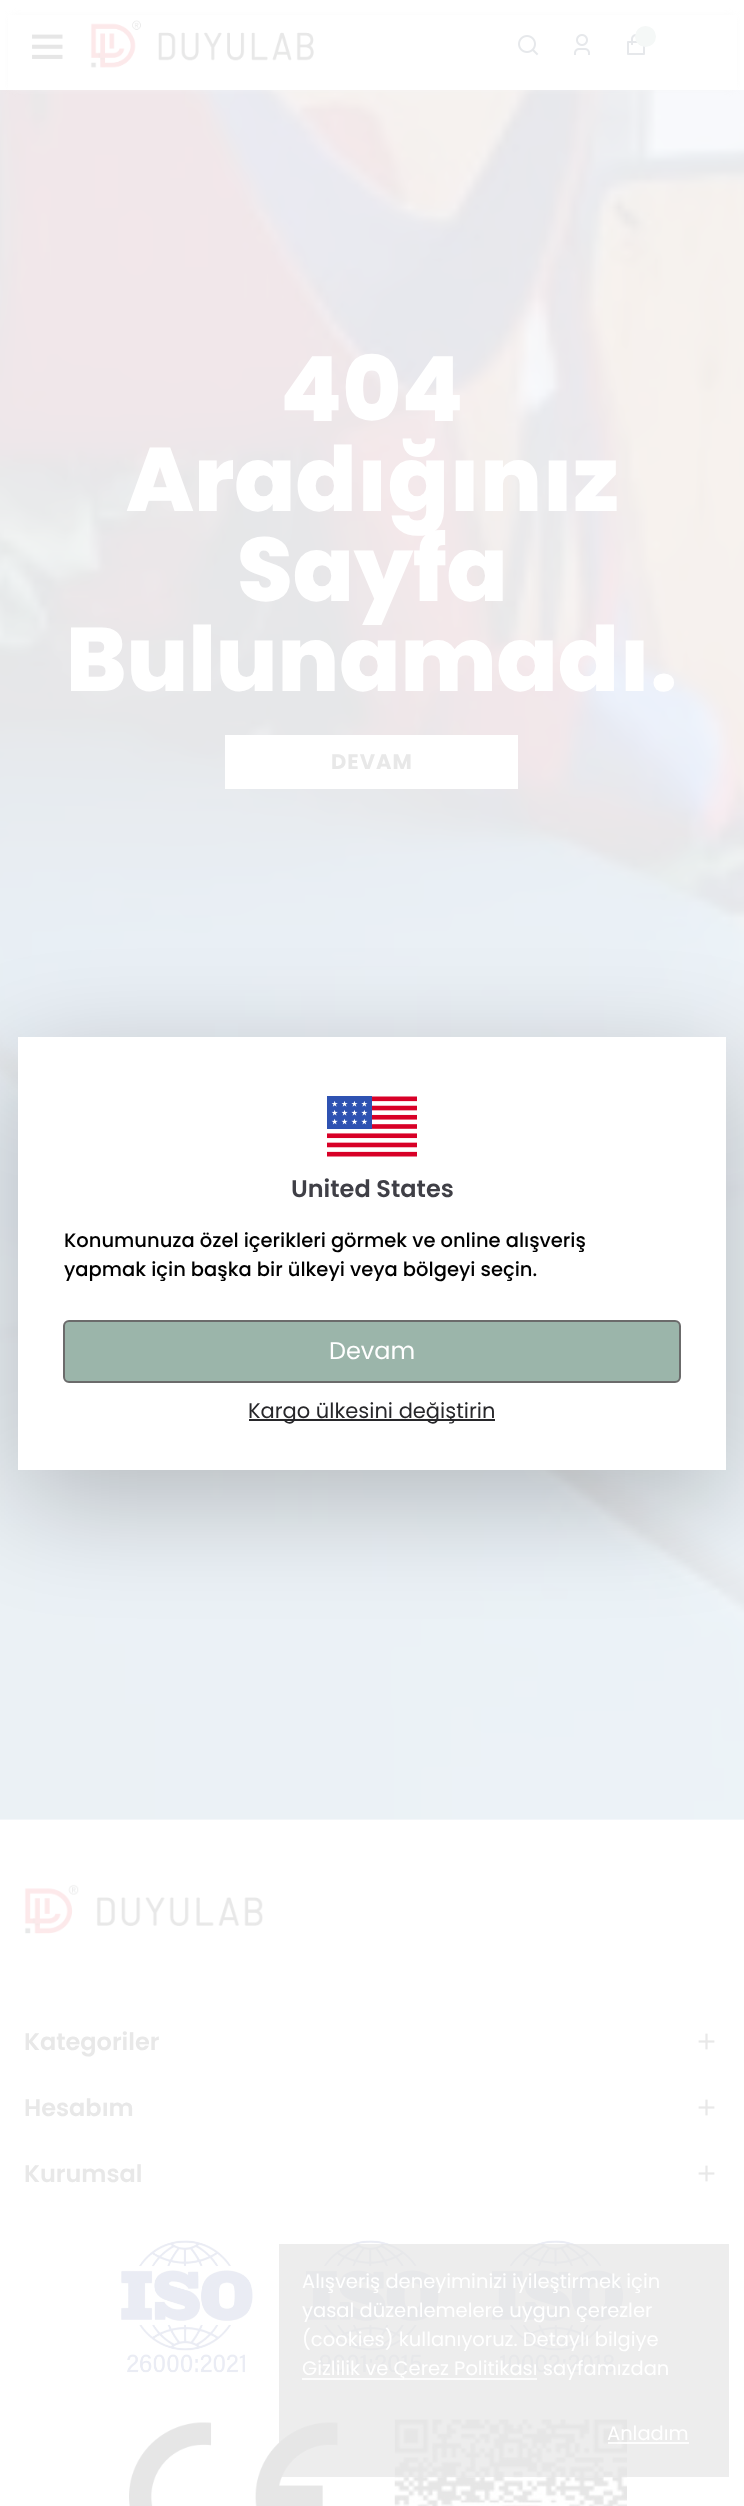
<svg xmlns="http://www.w3.org/2000/svg" width="744" height="2506">
	<rect width="100%" height="100%" fill="#FFFFFF" />
	<rect x="0" y="1819" width="744" height="1" fill="#FAFBFD" />
	<image x="0" y="90" width="744" height="1730" href="assets/img1.png" />
	<g font-family="Poppins" font-size="90" font-weight="800" fill="#FFFFFF">
		<text x="280" y="421">404</text>
		<text x="126" y="511">Aradığınız</text>
		<text x="237" y="601">Sayfa</text>
		<text x="66" y="691">Bulunamadı.</text>
	</g>
	<rect x="225" y="735" width="293" height="54" fill="#FFFFFF" />
	<text x="331" y="769" font-family="Poppins" font-size="21" font-weight="700" letter-spacing="1" fill="#E8E8E8">DEVAM</text>
	<rect x="11" y="18" width="723" height="69" fill="#F5F5F5" filter="blur(4px)" />
	<rect x="8" y="15" width="729" height="75" fill="#FFFFFF" />
	<image x="32" y="34" width="31" height="25" href="assets/img2.png" />
	<image x="90" y="20" width="224" height="48" href="assets/img3.png" />
	<image x="518" y="35" width="21" height="21" href="assets/img4.png" />
	<image x="574" y="34" width="16" height="21" href="assets/img5.png" />
	<image x="627" y="34" width="18" height="21" href="assets/img6.png" />
	<circle cx="645.5" cy="36.5" r="10.5" fill="#F5F8F7" />
	<image x="305" y="2239" width="135" height="134" href="assets/img10.png" />
	<image x="491" y="2239" width="133" height="134" href="assets/img11.png" />
	<image x="129" y="2422" width="209" height="84" href="assets/img12.png" />
	<image x="394" y="2419" width="233" height="87" href="assets/img13.png" />
	<rect x="279" y="2244" width="450" height="233" fill="#E6E6E6" fill-opacity="0.73" />
	<g font-family="Poppins" font-size="19.5" fill="#FFFFFF">
		<text x="302" y="2288">Alışveriş deneyiminizi iyileştirmek için</text>
		<text x="302" y="2317">yasal düzenlemelere uygun çerezler</text>
		<text x="302" y="2346">(cookies) kullanıyoruz. Detaylı bilgiye</text>
	</g>
	<rect x="302" y="2378" width="235" height="2" fill="#FCFCFC" />
	<g font-family="Poppins" font-size="19.5" fill="#FFFFFF">
		<text x="302" y="2375">Gizlilik ve Çerez Politikası sayfamızdan</text>
		<text x="607" y="2440">Anladım</text>
	</g>
	<rect x="608" y="2442" width="81" height="2" fill="#FFFFFF" fill-opacity="0.86" />
	<image x="24" y="1884" width="239" height="50" href="assets/img7.png" />
	<text x="24" y="2050" font-family="Poppins" font-size="24" font-weight="600" fill="#E8E8E8">Kategoriler</text>
	<image x="698" y="2033" width="17" height="17" href="assets/img8.png" />
	<text x="24" y="2116" font-family="Poppins" font-size="24" font-weight="600" fill="#E8E8E8">Hesabım</text>
	<image x="698" y="2099" width="17" height="17" href="assets/img8.png" />
	<text x="24" y="2182" font-family="Poppins" font-size="24" font-weight="600" fill="#E8E8E8">Kurumsal</text>
	<image x="698" y="2165" width="17" height="17" href="assets/img8.png" />
	<image x="121" y="2240" width="132" height="133" href="assets/img9.png" />
	<rect x="18" y="1067" width="708" height="433" fill="#000000" fill-opacity="0.23" filter="blur(56px)" />
	<rect x="18" y="1037" width="708" height="433" fill="#FFFFFF" />
	<image x="327" y="1096" width="90" height="61" href="assets/img14.png" />
	<text x="291" y="1197" font-family="Poppins" font-size="24" font-weight="600" fill="#3F3F46">United States</text>
	<g font-family="Poppins" font-size="19.5" font-weight="500" fill="#000000">
		<text x="64" y="1247">Konumunuza özel içerikleri görmek ve online alışveriş</text>
		<text x="64" y="1276">yapmak için başka bir ülkeyi veya bölgeyi seçin.</text>
	</g>
	<rect x="64" y="1321" width="616" height="61" rx="5" fill="#9BB5AA" stroke="#6B6B6B" stroke-width="2" />
	<text x="329" y="1359" font-family="Poppins" font-size="24" fill="#FFFFFF">Devam</text>
	<rect x="249" y="1419" width="246" height="2" fill="#27272A" />
	<text x="248" y="1418" font-family="Poppins" font-size="21" fill="#27272A">Kargo ülkesini değiştirin</text>
</svg>
